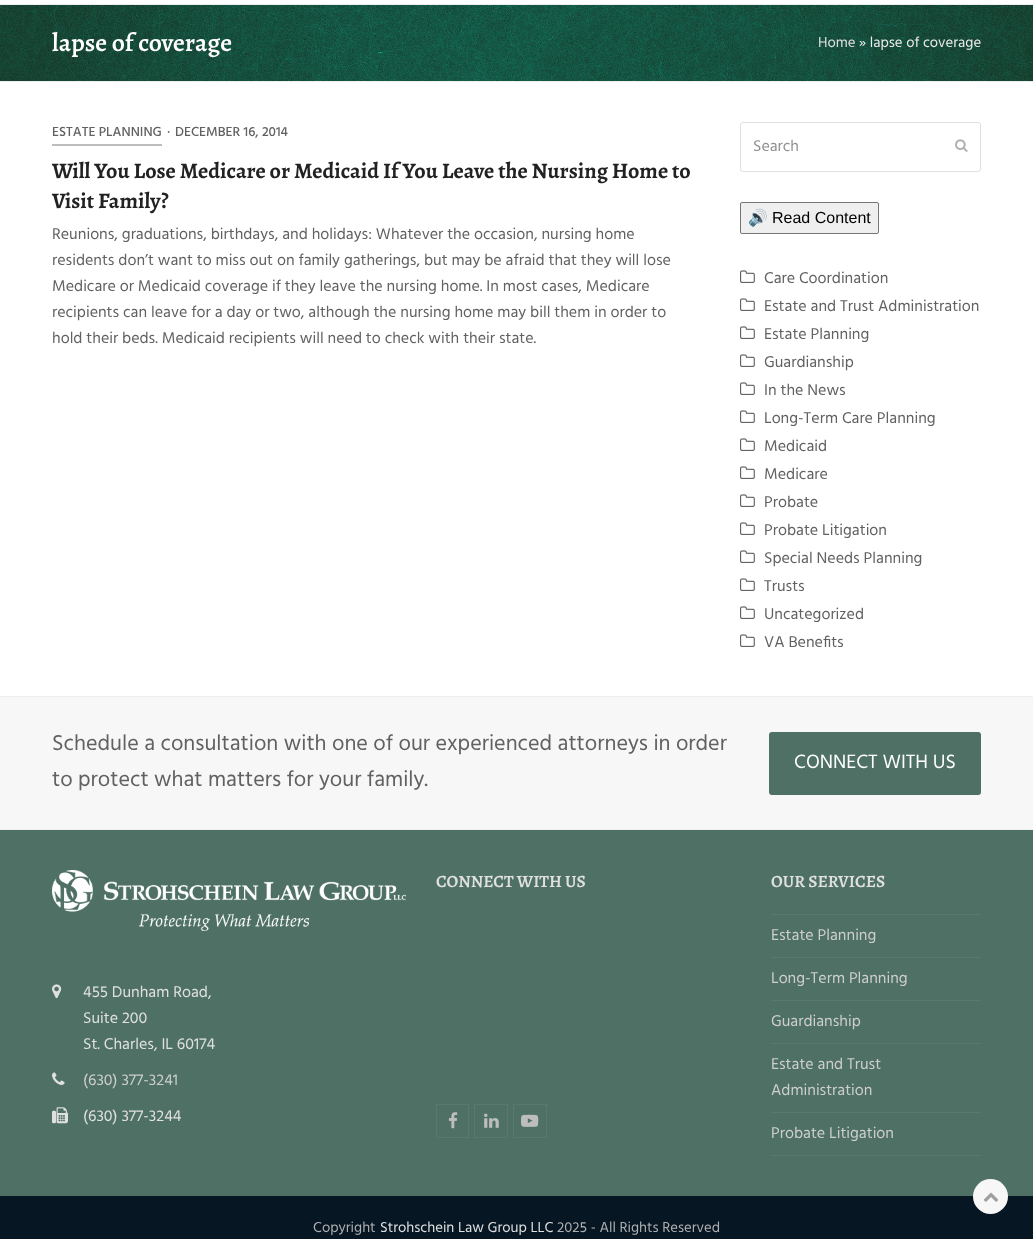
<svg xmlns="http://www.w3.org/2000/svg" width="1033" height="1239">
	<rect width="100%" height="100%" fill="#FFFFFF" />
	<image x="0" y="5" width="1033" height="76" href="assets/img1.png" />
	<rect x="0" y="4" width="1033" height="1" fill="#EEEEEE" />
	<rect x="0" y="81" width="1033" height="1" fill="#EEEEEE" />
	<text x="52" y="51" font-family="Alegreya" font-size="25.75" font-weight="600" fill="#FFFFFF">lapse of coverage</text>
	<text x="818" y="47" font-family="Hind" font-size="14.75" fill="#E0E0E0">Home</text>
	<text x="859" y="47" font-family="Hind" font-size="14.75" fill="#EDEDED">» lapse of coverage</text>
	<rect x="52" y="144" width="110" height="2" fill="#BDBDBD" />
	<g font-family="Hind" font-size="13.5" font-weight="500" fill="#616161">
		<text x="52" y="136">ESTATE PLANNING</text>
		<text x="167" y="136">·</text>
		<text x="175" y="136">DECEMBER 16, 2014</text>
	</g>
	<g font-family="Alegreya" font-size="22.15" font-weight="700" fill="#222222">
		<text x="52" y="178">Will You Lose Medicare or Medicaid If You Leave the Nursing Home to</text>
		<text x="52" y="208">Visit Family?</text>
	</g>
	<g font-family="Hind" font-size="16" fill="#616161">
		<text x="52" y="239">Reunions, graduations, birthdays, and holidays: Whatever the occasion, nursing home</text>
		<text x="52" y="265">residents don’t want to miss out on family gatherings, but may be afraid that they will lose</text>
		<text x="52" y="291">Medicare or Medicaid coverage if they leave the nursing home. In most cases, Medicare</text>
		<text x="52" y="317">recipients can leave for a day or two, although the nursing home may bill them in order to</text>
		<text x="52" y="343">hold their beds. Medicaid recipients will need to check with their state.</text>
	</g>
	<rect x="740.5" y="122.5" width="240" height="49" rx="2.5" fill="none" stroke="#E0E0E0" />
	<text x="753" y="151" font-family="Hind" font-size="16" fill="#909090">Search</text>
	<image x="955" y="139" width="13" height="13" href="assets/img2.png" />
	<rect x="740.5" y="202.5" width="138" height="31" rx="1.5" fill="#EFEFEF" stroke="#767676" />
	<text x="748" y="223" font-family="Noto Color Emoji" font-size="16" fill="#000000">🔊</text>
	<text x="772" y="223" font-family="Liberation Sans" font-size="16" fill="#000000">Read Content</text>
	<image x="740" y="270" width="15" height="13" href="assets/img3.png" />
	<text x="764" y="283" font-family="Hind" font-size="16" fill="#616161">Care Coordination</text>
	<image x="740" y="298" width="15" height="13" href="assets/img3.png" />
	<text x="764" y="311" font-family="Hind" font-size="16" fill="#616161">Estate and Trust Administration</text>
	<image x="740" y="326" width="15" height="13" href="assets/img3.png" />
	<text x="764" y="339" font-family="Hind" font-size="16" fill="#616161">Estate Planning</text>
	<image x="740" y="354" width="15" height="13" href="assets/img3.png" />
	<text x="764" y="367" font-family="Hind" font-size="16" fill="#616161">Guardianship</text>
	<image x="740" y="382" width="15" height="13" href="assets/img3.png" />
	<text x="764" y="395" font-family="Hind" font-size="16" fill="#616161">In the News</text>
	<image x="740" y="410" width="15" height="13" href="assets/img3.png" />
	<text x="764" y="423" font-family="Hind" font-size="16" fill="#616161">Long-Term Care Planning</text>
	<image x="740" y="438" width="15" height="13" href="assets/img3.png" />
	<text x="764" y="451" font-family="Hind" font-size="16" fill="#616161">Medicaid</text>
	<image x="740" y="466" width="15" height="13" href="assets/img3.png" />
	<text x="764" y="479" font-family="Hind" font-size="16" fill="#616161">Medicare</text>
	<image x="740" y="494" width="15" height="13" href="assets/img3.png" />
	<text x="764" y="507" font-family="Hind" font-size="16" fill="#616161">Probate</text>
	<image x="740" y="522" width="15" height="13" href="assets/img3.png" />
	<text x="764" y="535" font-family="Hind" font-size="16" fill="#616161">Probate Litigation</text>
	<image x="740" y="550" width="15" height="13" href="assets/img3.png" />
	<text x="764" y="563" font-family="Hind" font-size="16" fill="#616161">Special Needs Planning</text>
	<image x="740" y="578" width="15" height="13" href="assets/img3.png" />
	<text x="764" y="591" font-family="Hind" font-size="16" fill="#616161">Trusts</text>
	<image x="740" y="606" width="15" height="13" href="assets/img3.png" />
	<text x="764" y="619" font-family="Hind" font-size="16" fill="#616161">Uncategorized</text>
	<image x="740" y="634" width="15" height="13" href="assets/img3.png" />
	<text x="764" y="647" font-family="Hind" font-size="16" fill="#616161">VA Benefits</text>
	<rect x="0" y="697" width="1033" height="132" fill="#F7F7F7" />
	<rect x="0" y="696" width="1033" height="1" fill="#EEEEEE" />
	<rect x="0" y="829" width="1033" height="1" fill="#EEEEEE" />
	<g font-family="Hind" font-size="22.15" fill="#616161">
		<text x="52" y="750">Schedule a consultation with one of our experienced attorneys in order</text>
		<text x="52" y="786">to protect what matters for your family.</text>
	</g>
	<rect x="769" y="732" width="212" height="63" rx="3" fill="#4E7065" />
	<text x="794" y="768" font-family="Hind" font-size="19.75" fill="#FFFFFF">CONNECT WITH US</text>
	<rect x="0" y="830" width="1033" height="366" fill="#4E7065" />
	<image x="52" y="870" width="354" height="61" href="assets/img4.png" />
	<image x="52" y="984" width="10" height="15" href="assets/img5.png" />
	<g font-family="Hind" font-size="16" fill="#E0E0E0">
		<text x="83" y="997">455 Dunham Road,</text>
		<text x="83" y="1023">Suite 200</text>
		<text x="83" y="1049">St. Charles, IL 60174</text>
	</g>
	<image x="52" y="1072" width="13" height="13" href="assets/img6.png" />
	<text x="83" y="1085" font-family="Hind" font-size="16" fill="#CECECE">(630) 377-3241</text>
	<image x="52" y="1107" width="16" height="17" href="assets/img7.png" />
	<text x="83" y="1121" font-family="Hind" font-size="16" fill="#E0E0E0">(630) 377-3244</text>
	<text x="436" y="887" font-family="Alegreya" font-size="17.25" font-weight="600" fill="#E0E0E0">CONNECT WITH US</text>
	<rect x="436.5" y="1104.5" width="32" height="33" fill="none" stroke="#59796E" />
	<image x="448" y="1112" width="10" height="17" href="assets/img8.png" />
	<rect x="474.5" y="1104.5" width="33" height="33" fill="none" stroke="#59796E" />
	<image x="484" y="1113" width="15" height="15" href="assets/img9.png" />
	<rect x="513.5" y="1104.5" width="33" height="33" fill="none" stroke="#59796E" />
	<image x="521" y="1114" width="18" height="13" href="assets/img10.png" />
	<text x="771" y="887" font-family="Alegreya" font-size="17.25" font-weight="600" fill="#E0E0E0">OUR SERVICES</text>
	<rect x="771" y="914" width="210" height="1" fill="#59796E" />
	<rect x="771" y="957" width="210" height="1" fill="#59796E" />
	<text x="771" y="940" font-family="Hind" font-size="16" fill="#CECECE">Estate Planning</text>
	<rect x="771" y="1000" width="210" height="1" fill="#59796E" />
	<text x="771" y="983" font-family="Hind" font-size="16" fill="#CECECE">Long-Term Planning</text>
	<rect x="771" y="1043" width="210" height="1" fill="#59796E" />
	<text x="771" y="1026" font-family="Hind" font-size="16" fill="#CECECE">Guardianship</text>
	<rect x="771" y="1112" width="210" height="1" fill="#59796E" />
	<g font-family="Hind" font-size="16" fill="#CECECE">
		<text x="771" y="1069">Estate and Trust</text>
		<text x="771" y="1095">Administration</text>
	</g>
	<rect x="771" y="1155" width="210" height="1" fill="#59796E" />
	<text x="771" y="1138" font-family="Hind" font-size="16" fill="#CECECE">Probate Litigation</text>
	<rect x="0" y="1196" width="1033" height="43" fill="#061623" />
	<text x="313" y="1232" font-family="Hind" font-size="14.75" fill="#AFAFAF">Copyright</text>
	<text x="380" y="1232" font-family="Hind" font-size="14.75" fill="#E0E0E0">Strohschein Law Group LLC</text>
	<text x="557" y="1232" font-family="Hind" font-size="14.75" fill="#AFAFAF">2025 - All Rights Reserved</text>
	<circle cx="990.5" cy="1196.5" r="17.5" fill="#F7F7F7" />
	<image x="983" y="1192" width="16" height="10" href="assets/img11.png" />
</svg>
